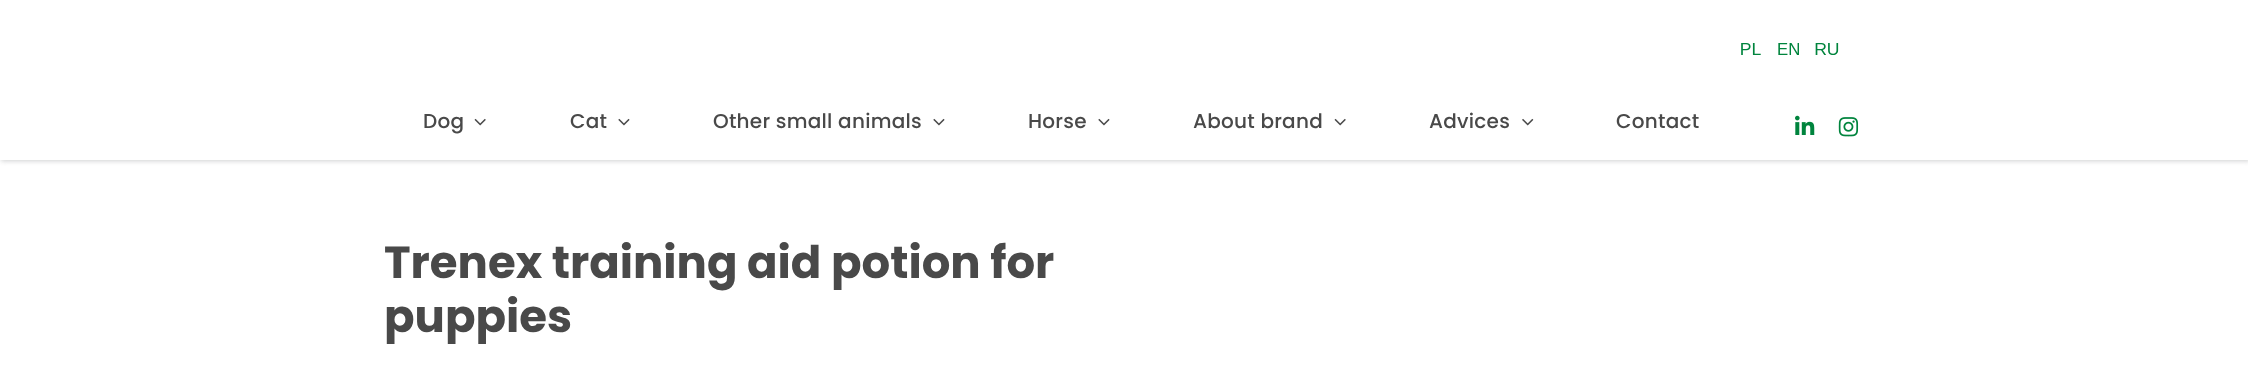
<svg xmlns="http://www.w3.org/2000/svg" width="2248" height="366">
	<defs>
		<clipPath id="clip1"><rect x="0" y="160" width="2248" height="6" /></clipPath>
	</defs>
	<rect width="100%" height="100%" fill="#FFFFFF" />
	<g clip-path="url(#clip1)">
		<rect x="1" y="1" width="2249" height="160" fill="#CFD0D1" filter="blur(2.5px)" />
	</g>
	<image x="1741" y="43" width="20" height="12" href="assets/img1.png" />
	<image x="1778" y="43" width="21" height="12" href="assets/img2.png" />
	<image x="1815" y="43" width="24" height="12" href="assets/img3.png" />
	<text x="423" y="128" font-family="Poppins" font-size="20" font-weight="500" letter-spacing="0.25" fill="#494949">Dog</text>
	<image x="474" y="118" width="12" height="8" href="assets/img4.png" />
	<text x="570" y="128" font-family="Poppins" font-size="20" font-weight="500" letter-spacing="0.25" fill="#494949">Cat</text>
	<image x="618" y="118" width="12" height="8" href="assets/img5.png" />
	<text x="713" y="128" font-family="Poppins" font-size="20" font-weight="500" letter-spacing="0.25" fill="#494949">Other small animals</text>
	<image x="933" y="118" width="12" height="8" href="assets/img5.png" />
	<text x="1028" y="128" font-family="Poppins" font-size="20" font-weight="500" letter-spacing="0.25" fill="#494949">Horse</text>
	<image x="1098" y="118" width="12" height="8" href="assets/img5.png" />
	<text x="1193" y="128" font-family="Poppins" font-size="20" font-weight="500" letter-spacing="0.25" fill="#494949">About brand</text>
	<image x="1334" y="118" width="12" height="8" href="assets/img4.png" />
	<text x="1429" y="128" font-family="Poppins" font-size="20" font-weight="500" letter-spacing="0.25" fill="#494949">Advices</text>
	<image x="1522" y="118" width="12" height="8" href="assets/img6.png" />
	<text x="1616" y="128" font-family="Poppins" font-size="20" font-weight="500" letter-spacing="0.25" fill="#494949">Contact</text>
	<image x="1795" y="115" width="20" height="20" href="assets/img7.png" />
	<image x="1838" y="117" width="21" height="20" href="assets/img8.png" />
	<g font-family="Poppins" font-size="45" font-weight="700" fill="#494949">
		<text x="384" y="278">Trenex training aid potion for</text>
		<text x="384" y="332">puppies</text>
	</g>
</svg>
